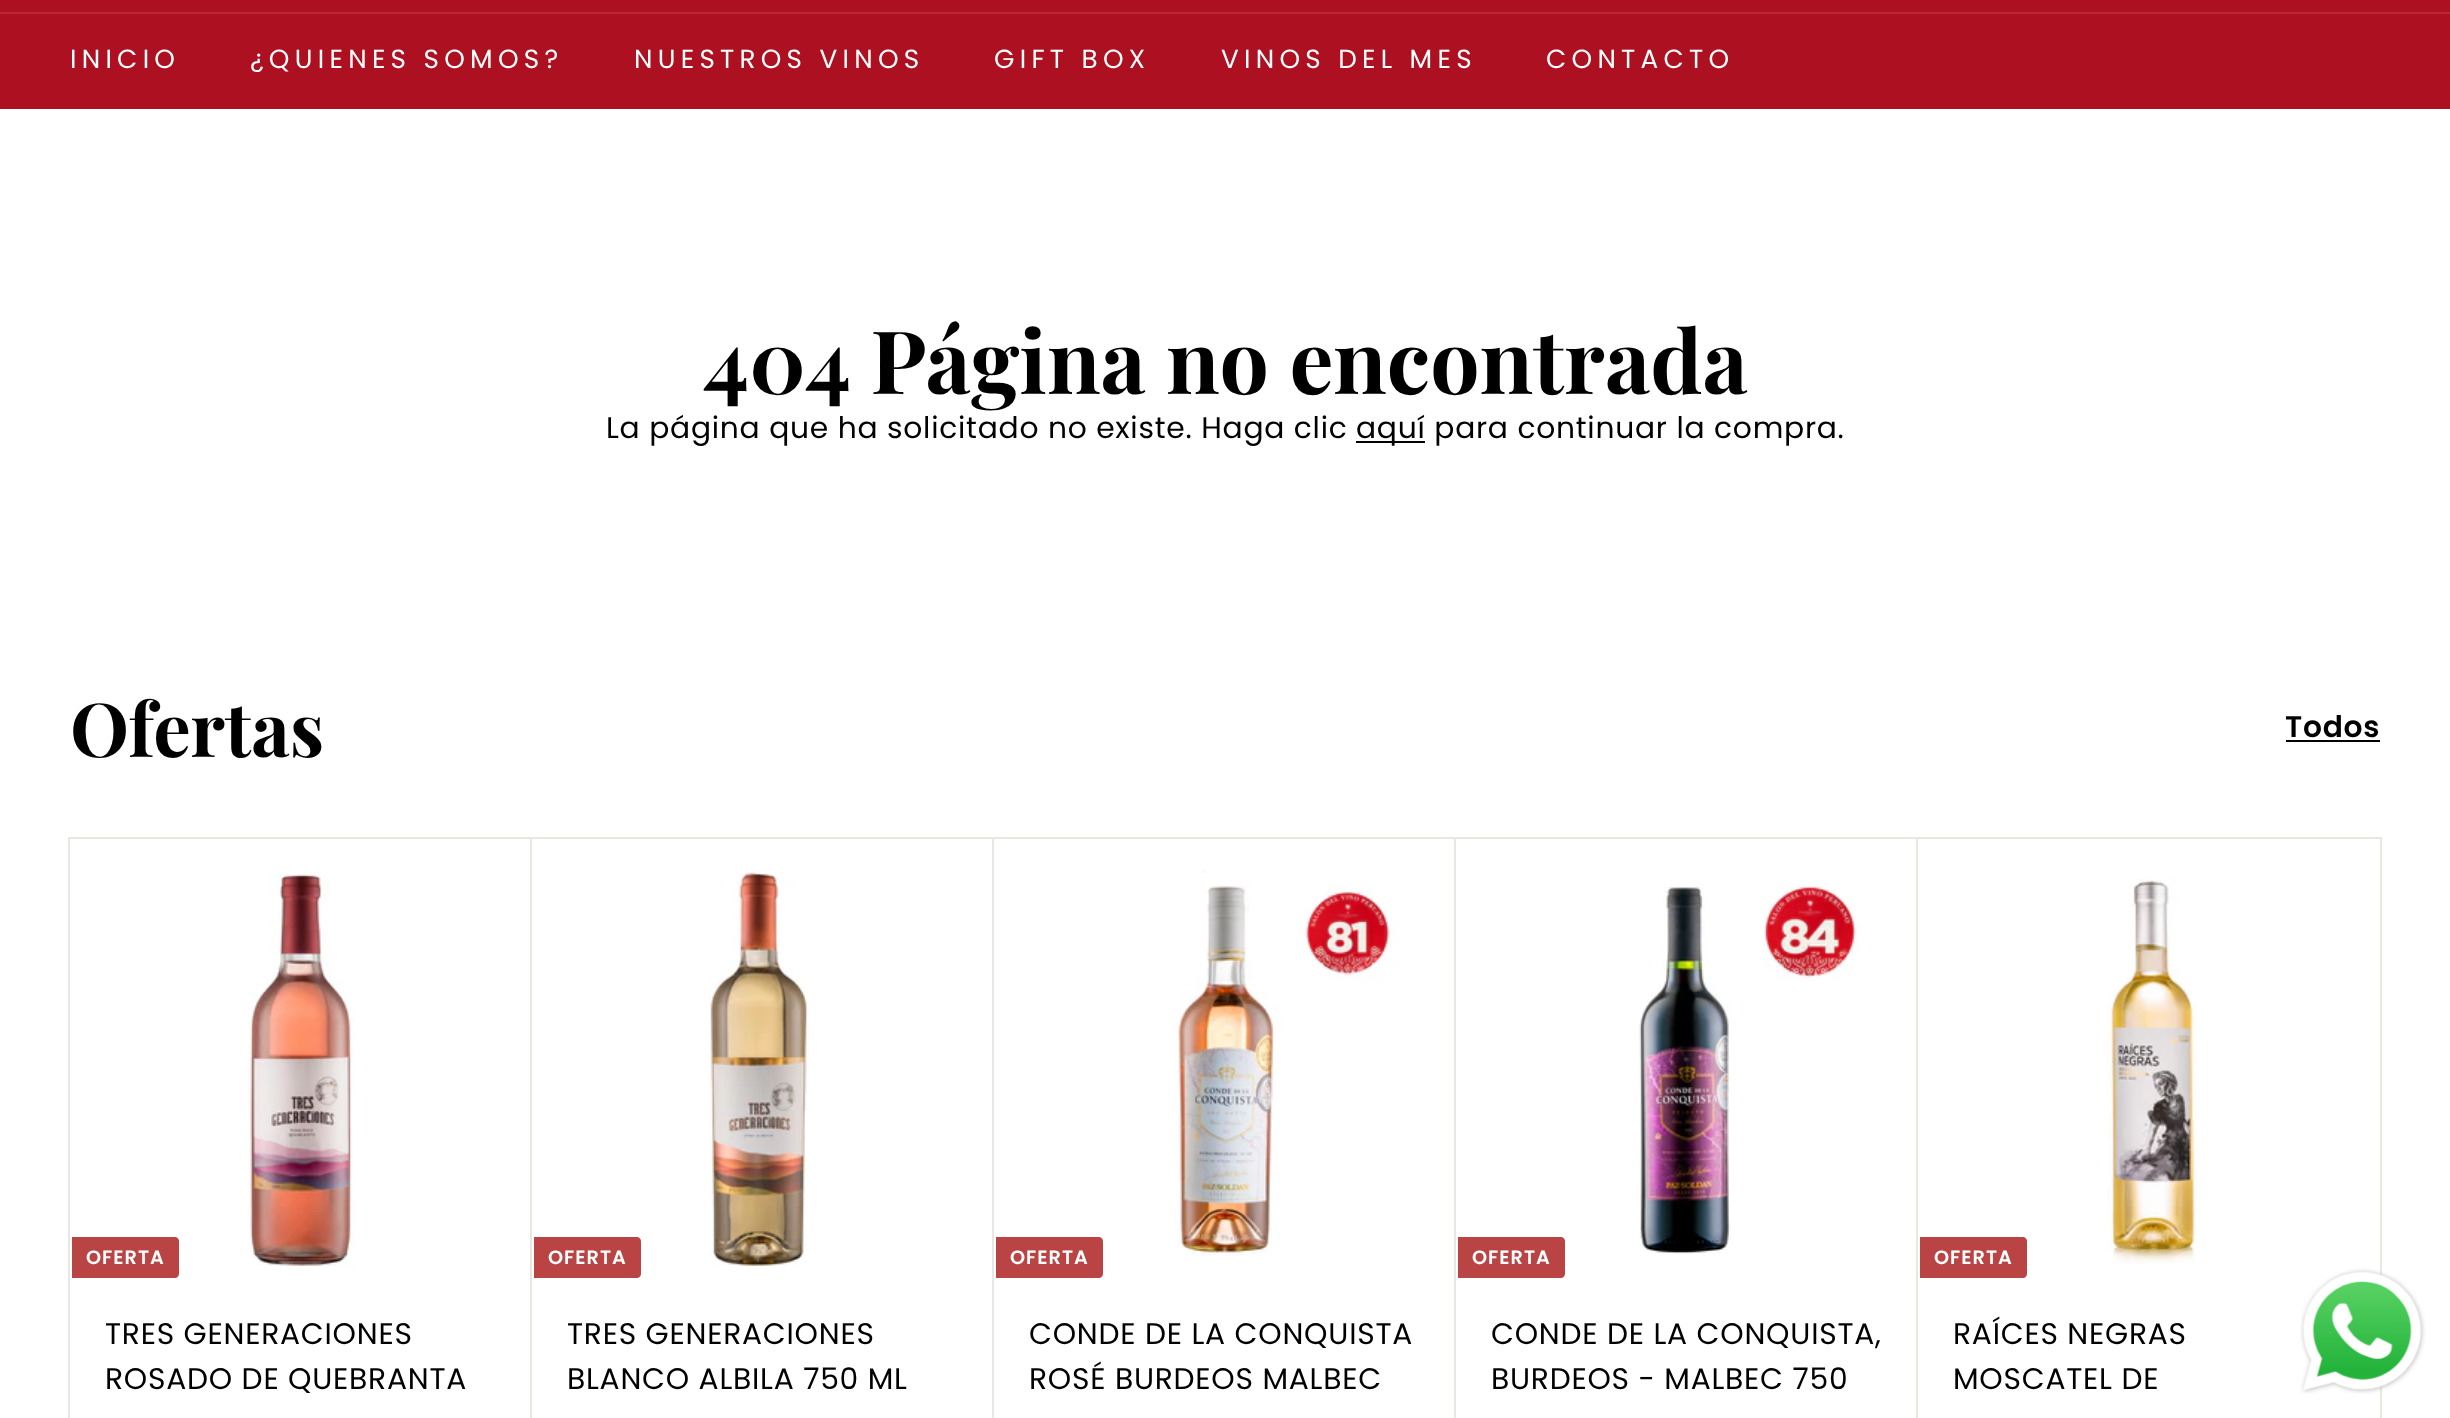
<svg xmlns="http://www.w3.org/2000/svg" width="2450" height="1418">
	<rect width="100%" height="100%" fill="#FFFFFF" />
	<rect x="0" y="0" width="2450" height="12" fill="#AD1121" />
	<rect x="0" y="14" width="2450" height="95" fill="#AD1121" />
	<rect x="0" y="12" width="2450" height="2" fill="#B52937" />
	<g font-family="Poppins" font-size="26.25" letter-spacing="5.25" fill="#FFFFFF">
		<text x="70" y="68">INICIO</text>
		<text x="250" y="68">¿QUIENES SOMOS?</text>
		<text x="634" y="68">NUESTROS VINOS</text>
		<text x="994" y="68">GIFT BOX</text>
		<text x="1221" y="68">VINOS DEL MES</text>
		<text x="1546" y="68">CONTACTO</text>
	</g>
	<text x="703" y="394" font-family="Playfair Display" font-size="87.5" font-weight="700" fill="#000000">404 Página no encontrada</text>
	<text x="606" y="438" font-family="Poppins" font-size="29.75" letter-spacing="0.75" fill="#000000">La página que ha solicitado no existe. Haga clic</text>
	<rect x="1356" y="441" width="69" height="2" fill="#000000" />
	<text x="1356" y="438" font-family="Poppins" font-size="29.75" letter-spacing="0.75" fill="#000000">aquí para continuar la compra.</text>
	<text x="70" y="757" font-family="Playfair Display" font-size="74.5" font-weight="700" fill="#000000">Ofertas</text>
	<text x="2285" y="737" font-family="Poppins" font-size="29.75" font-weight="600" letter-spacing="0.75" fill="#000000">Todos</text>
	<rect x="2286" y="740" width="94" height="2" fill="#000000" />
	<image x="248" y="873" width="107" height="393" href="assets/img1.png" />
	<rect x="69" y="838" width="464" height="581" fill="none" stroke="#E8E8E1" stroke-width="2" />
	<path d="M72 1237H175C177 1237 179 1239 179 1241V1274C179 1276 177 1278 175 1278H72Z" fill="#BA4444" />
	<text x="86" y="1264" font-family="Poppins" font-size="19.25" font-weight="600" letter-spacing="1" fill="#FFFFFF">OFERTA</text>
	<g font-family="Poppins" font-size="29.75" letter-spacing="0.75" fill="#000000">
		<text x="105" y="1344">TRES GENERACIONES</text>
		<text x="105" y="1389">ROSADO DE QUEBRANTA</text>
	</g>
	<rect x="532" y="839" width="2" height="579" fill="#FFFFFF" />
	<image x="710" y="872" width="99" height="395" href="assets/img2.png" />
	<rect x="531" y="838" width="464" height="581" fill="none" stroke="#E8E8E1" stroke-width="2" />
	<path d="M534 1237H637C639 1237 641 1239 641 1241V1274C641 1276 639 1278 637 1278H534Z" fill="#BA4444" />
	<text x="548" y="1264" font-family="Poppins" font-size="19.25" font-weight="600" letter-spacing="1" fill="#FFFFFF">OFERTA</text>
	<g font-family="Poppins" font-size="29.75" letter-spacing="0.75" fill="#000000">
		<text x="567" y="1344">TRES GENERACIONES</text>
		<text x="567" y="1389">BLANCO ALBILA 750 ML</text>
	</g>
	<rect x="994" y="839" width="2" height="579" fill="#FFFFFF" />
	<image x="1175" y="870" width="222" height="386" href="assets/img3.png" />
	<rect x="993" y="838" width="464" height="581" fill="none" stroke="#E8E8E1" stroke-width="2" />
	<path d="M996 1237H1099C1101 1237 1103 1239 1103 1241V1274C1103 1276 1101 1278 1099 1278H996Z" fill="#BA4444" />
	<text x="1010" y="1264" font-family="Poppins" font-size="19.25" font-weight="600" letter-spacing="1" fill="#FFFFFF">OFERTA</text>
	<g font-family="Poppins" font-size="29.75" letter-spacing="0.75" fill="#000000">
		<text x="1029" y="1344">CONDE DE LA CONQUISTA</text>
		<text x="1029" y="1389">ROSÉ BURDEOS MALBEC</text>
	</g>
	<rect x="1456" y="839" width="2" height="579" fill="#FFFFFF" />
	<image x="1639" y="884" width="221" height="370" href="assets/img4.png" />
	<rect x="1455" y="838" width="464" height="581" fill="none" stroke="#E8E8E1" stroke-width="2" />
	<path d="M1458 1237H1561C1563 1237 1565 1239 1565 1241V1274C1565 1276 1563 1278 1561 1278H1458Z" fill="#BA4444" />
	<text x="1472" y="1264" font-family="Poppins" font-size="19.25" font-weight="600" letter-spacing="1" fill="#FFFFFF">OFERTA</text>
	<g font-family="Poppins" font-size="29.75" letter-spacing="0.75" fill="#000000">
		<text x="1491" y="1344">CONDE DE LA CONQUISTA,</text>
		<text x="1491" y="1389">BURDEOS - MALBEC 750</text>
	</g>
	<rect x="1918" y="839" width="2" height="579" fill="#FFFFFF" />
	<image x="2107" y="879" width="90" height="385" href="assets/img5.png" />
	<rect x="1917" y="838" width="464" height="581" fill="none" stroke="#E8E8E1" stroke-width="2" />
	<path d="M1920 1237H2023C2025 1237 2027 1239 2027 1241V1274C2027 1276 2025 1278 2023 1278H1920Z" fill="#BA4444" />
	<text x="1934" y="1264" font-family="Poppins" font-size="19.25" font-weight="600" letter-spacing="1" fill="#FFFFFF">OFERTA</text>
	<g font-family="Poppins" font-size="29.75" letter-spacing="0.75" fill="#000000">
		<text x="1953" y="1344">RAÍCES NEGRAS</text>
		<text x="1953" y="1389">MOSCATEL DE</text>
	</g>
	<image x="2300" y="1268" width="126" height="126" href="assets/img6.png" />
</svg>
